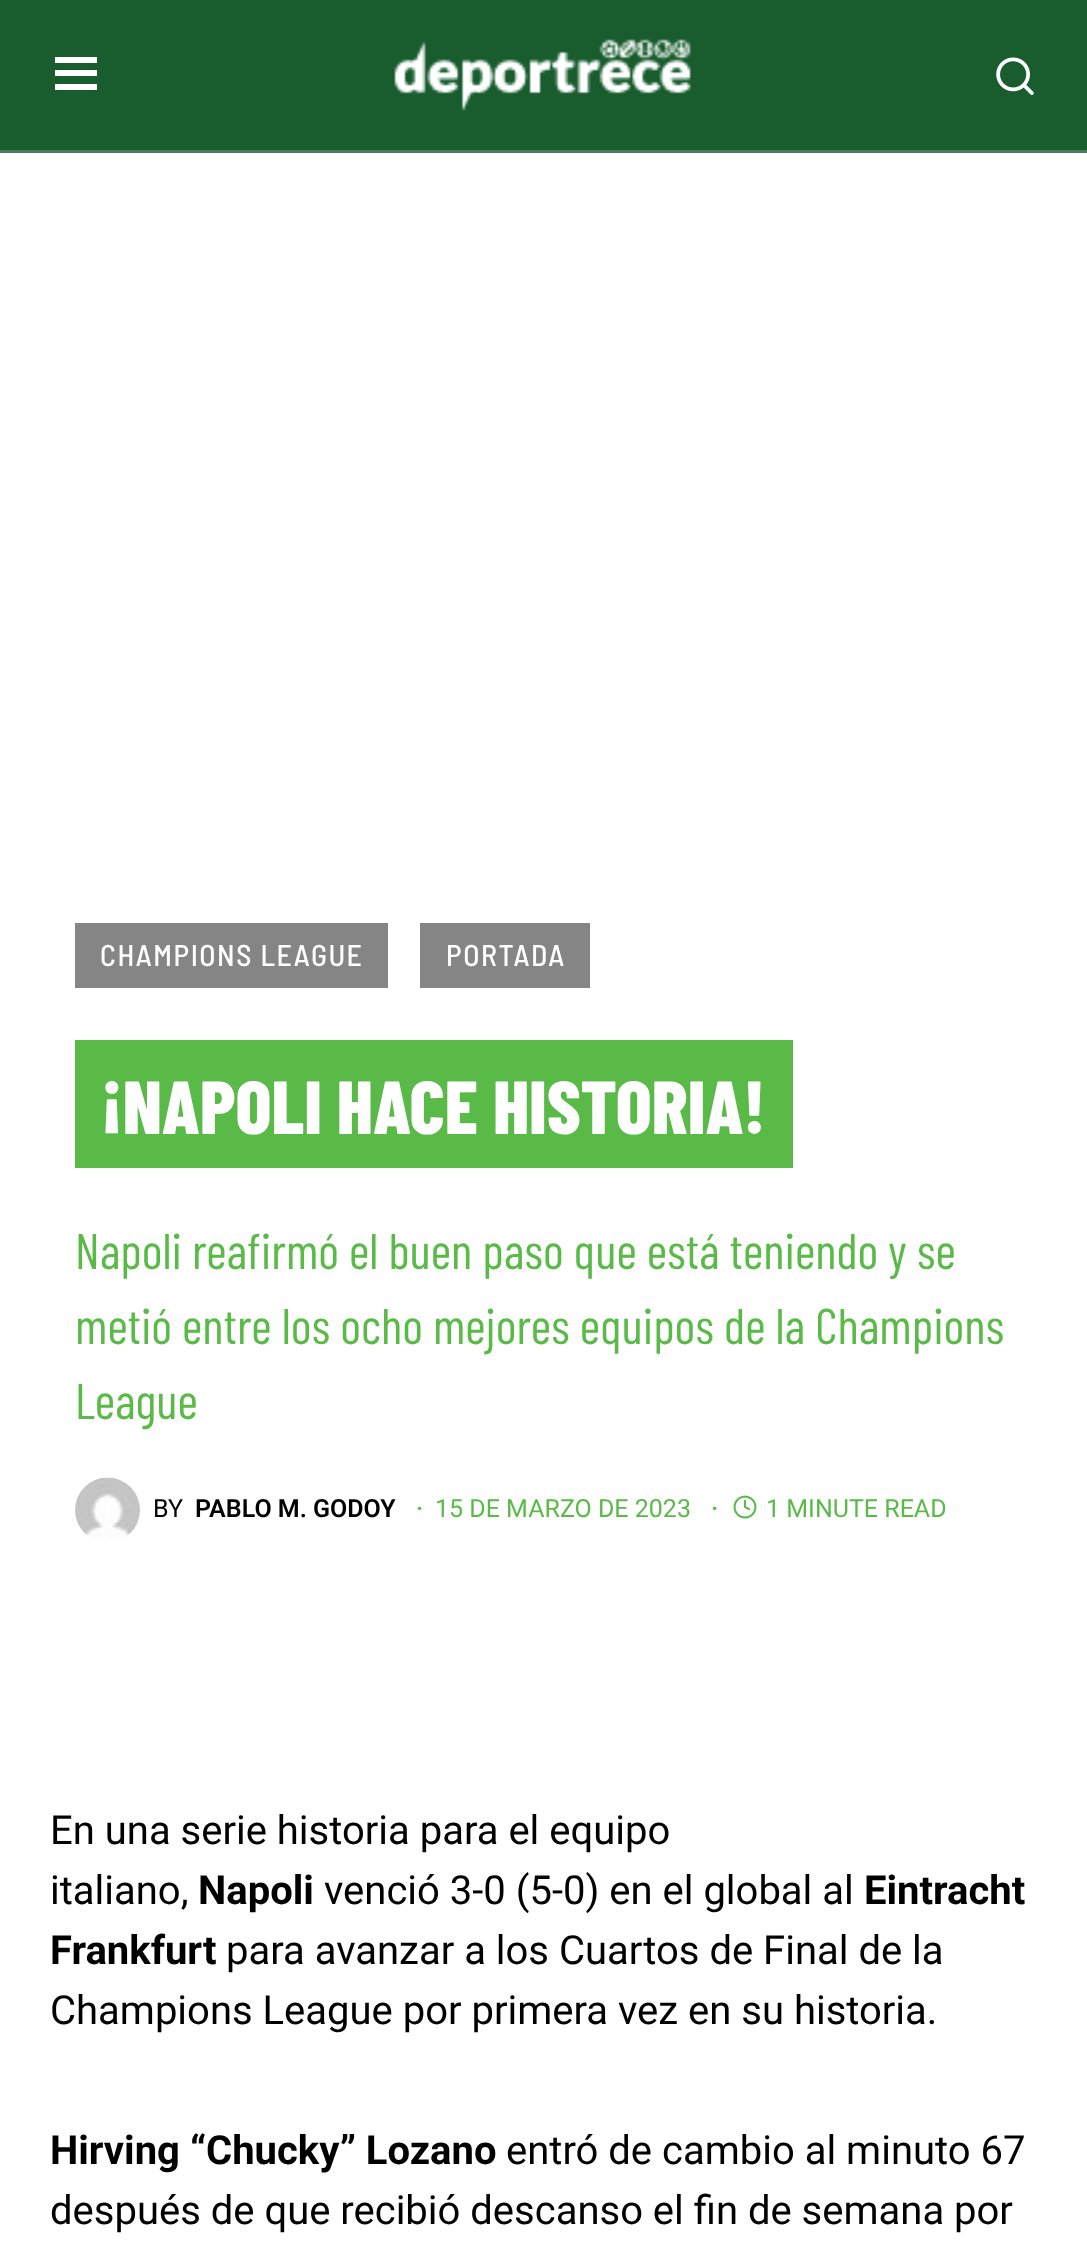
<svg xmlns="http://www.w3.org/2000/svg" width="1087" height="2266">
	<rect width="100%" height="100%" fill="#FFFFFF" />
	<rect x="0" y="0" width="1087" height="150" fill="#195D2F" />
	<rect x="0" y="150" width="1087" height="3" fill="#477D59" />
	<path d="M55 57H97V63H55ZM55 70H97V76H55ZM55 84H97V90H55Z" fill="#FFFFFF" />
	<image x="394" y="39" width="297" height="72" href="assets/img1.png" />
	<image x="996" y="57" width="38" height="38" href="assets/img2.png" />
	<rect x="75" y="923" width="313" height="65" fill="#858585" />
	<text x="100" y="966" font-family="Barlow Semi Condensed" font-size="30" font-weight="500" letter-spacing="1.5" fill="#FFFFFF">CHAMPIONS LEAGUE</text>
	<rect x="420" y="923" width="170" height="65" fill="#858585" />
	<text x="446" y="966" font-family="Barlow Semi Condensed" font-size="30" font-weight="500" letter-spacing="1.5" fill="#FFFFFF">PORTADA</text>
	<rect x="75" y="1040" width="718" height="128" fill="#5ABA47" />
	<text x="101" y="1134" font-family="Barlow Condensed" font-size="75" font-weight="800" fill="#FFFFFF">¡NAPOLI HACE HISTORIA!</text>
	<g font-family="Barlow Condensed" font-size="50" fill="#5ABA47">
		<text x="75" y="1269">Napoli reafirmó el buen paso que está teniendo y se</text>
		<text x="75" y="1344">metió entre los ocho mejores equipos de la Champions</text>
		<text x="75" y="1419">League</text>
	</g>
	<image x="75" y="1477" width="65" height="60" href="assets/img3.png" />
	<text x="153" y="1517" font-family="Roboto" font-size="25" fill="#000000">BY</text>
	<text x="195" y="1517" font-family="Roboto" font-size="25" font-weight="600" fill="#000000">PABLO M. GODOY</text>
	<text x="416" y="1517" font-family="Roboto" font-size="25" font-weight="600" fill="#5ABA47">·</text>
	<text x="435" y="1517" font-family="Roboto" font-size="25" fill="#5ABA47">15 DE MARZO DE 2023</text>
	<text x="711" y="1517" font-family="Roboto" font-size="25" font-weight="600" fill="#5ABA47">·</text>
	<image x="733" y="1495" width="24" height="24" href="assets/img4.png" />
	<text x="766" y="1517" font-family="Roboto" font-size="25" fill="#5ABA47">1 MINUTE READ</text>
	<g font-family="Roboto" font-size="40" fill="#000000">
		<text x="50" y="1844">En una serie historia para el equipo</text>
		<text x="50" y="1904">italiano,</text>
	</g>
	<text x="198" y="1904" font-family="Roboto" font-size="40" font-weight="700" fill="#000000">Napoli</text>
	<text x="324" y="1904" font-family="Roboto" font-size="40" fill="#000000">venció 3-0 (5-0) en el global al</text>
	<g font-family="Roboto" font-size="40" font-weight="700" fill="#000000">
		<text x="864" y="1904">Eintracht</text>
		<text x="50" y="1964">Frankfurt</text>
	</g>
	<g font-family="Roboto" font-size="40" fill="#000000">
		<text x="226" y="1964">para avanzar a los Cuartos de Final de la</text>
		<text x="50" y="2024">Champions League por primera vez en su historia.</text>
	</g>
	<text x="50" y="2164" font-family="Roboto" font-size="40" font-weight="700" fill="#000000">Hirving “Chucky” Lozano</text>
	<g font-family="Roboto" font-size="40" fill="#000000">
		<text x="506" y="2164">entró de cambio al minuto 67</text>
		<text x="50" y="2224">después de que recibió descanso el fin de semana por</text>
	</g>
</svg>
